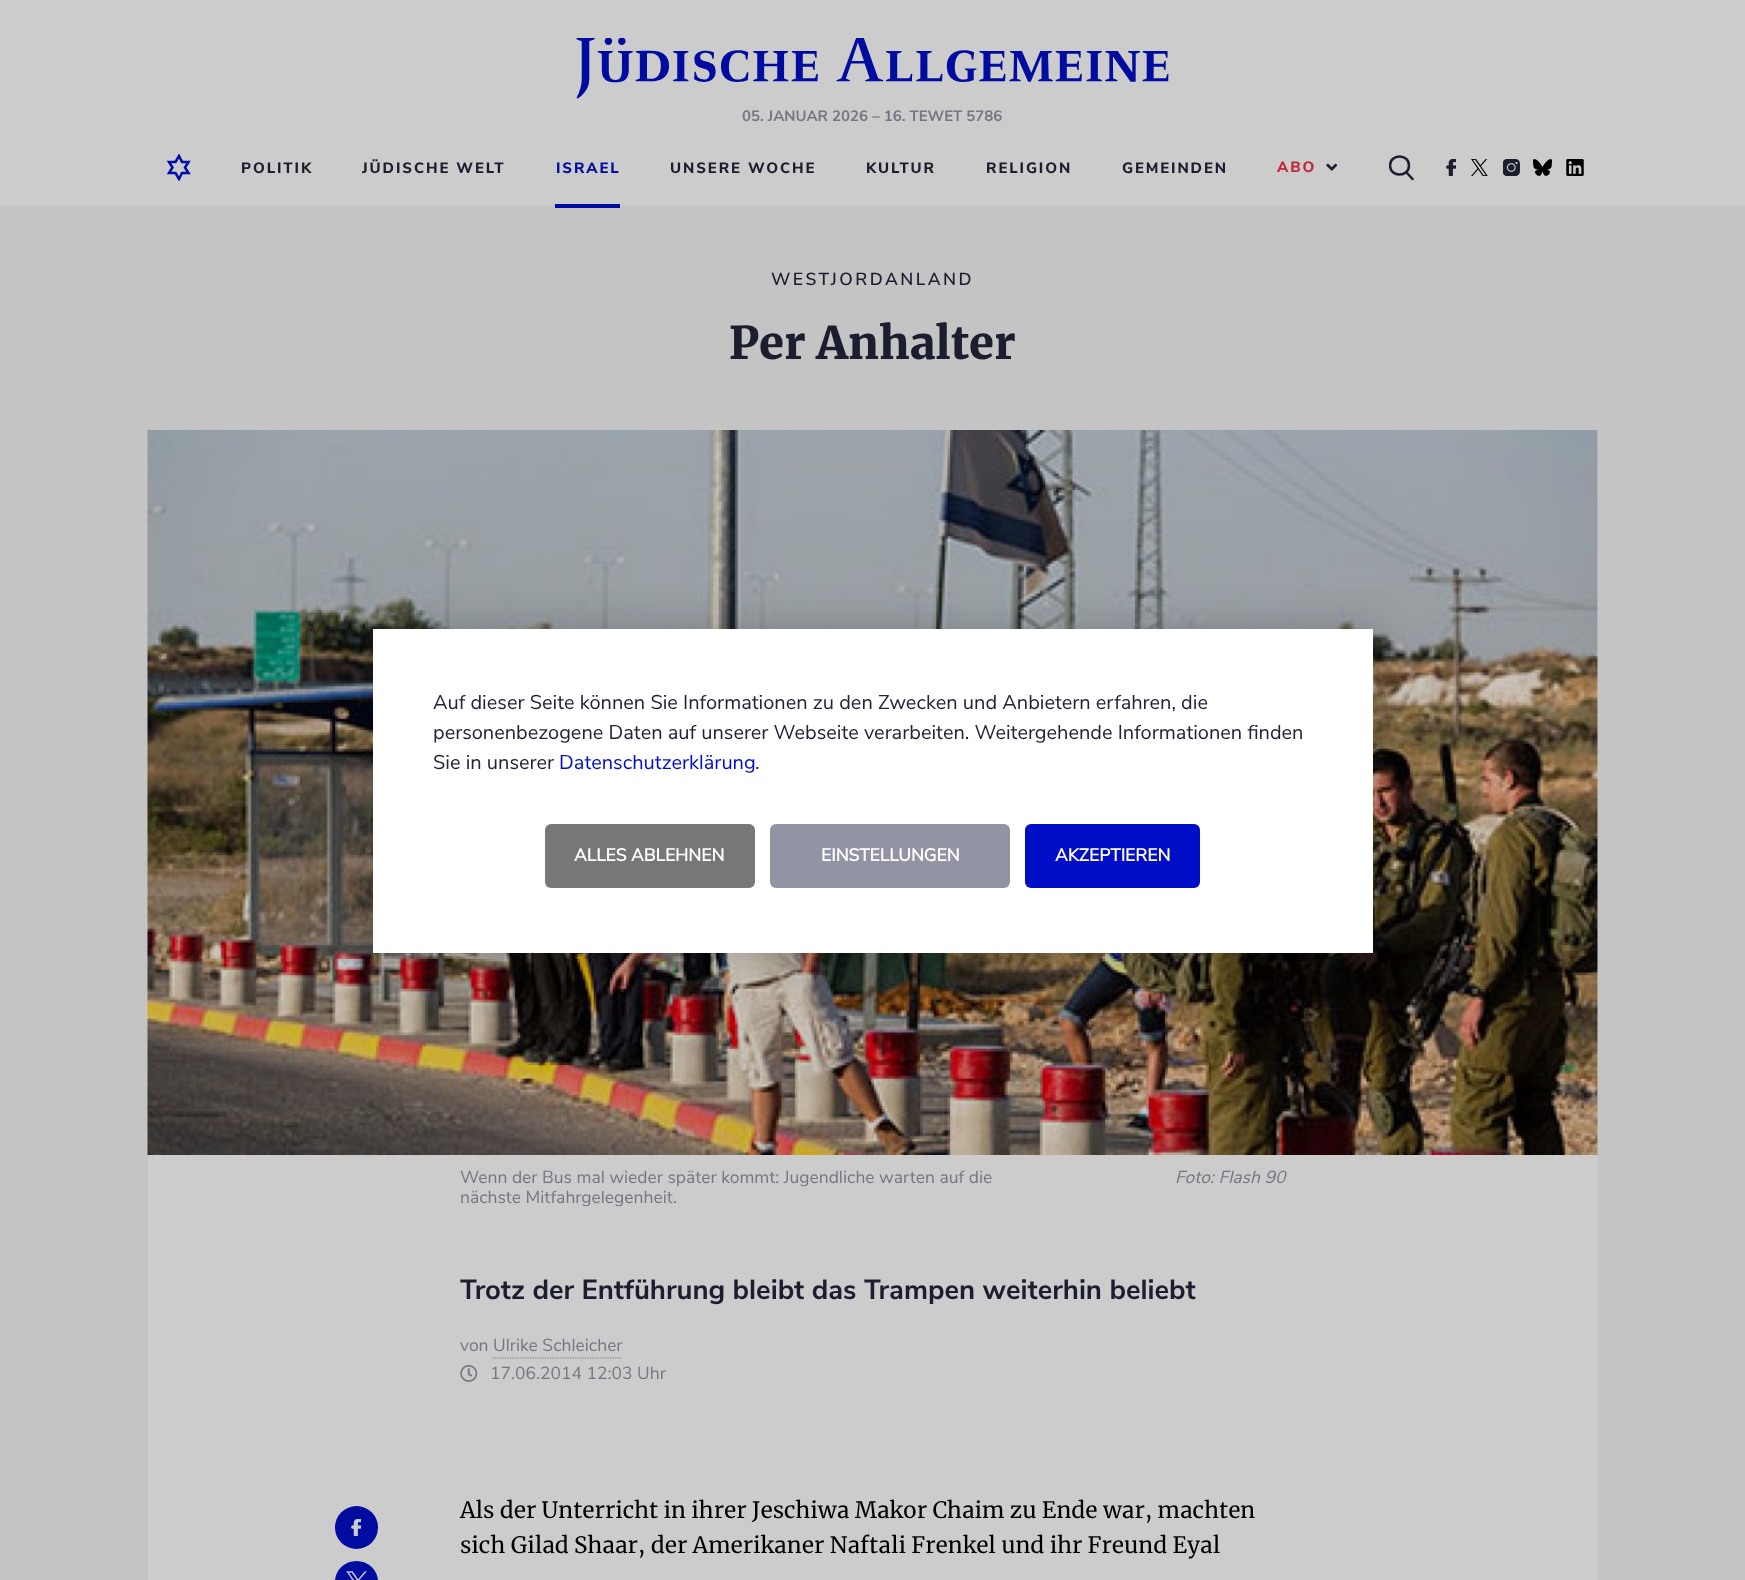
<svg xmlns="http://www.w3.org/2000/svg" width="1745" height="1580">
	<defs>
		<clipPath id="clip1"><rect x="166" y="154" width="25" height="27" /></clipPath>
		<clipPath id="clip2"><rect x="1389" y="155" width="25" height="26" /></clipPath>
	</defs>
	<rect width="100%" height="100%" fill="#CCCCCC" />
	<image x="576" y="38" width="593" height="61" href="assets/img1.png" />
	<text x="742" y="121" font-family="Nunito Sans" font-size="15" font-weight="700" fill="#767682">05. JANUAR 2026 – 16. TEWET 5786</text>
	<g clip-path="url(#clip1)">
		<path d="M179 156L175.5 162H169L172.5 167.5L169 173H175.5L179 179L182 173H188.5L185 167.5L188.5 162H182Z" fill="none" stroke="#000BAB" stroke-width="2.5" />
	</g>
	<g font-family="Nunito Sans" font-size="15" font-weight="800" letter-spacing="1.9" fill="#1C1D2E">
		<text x="241" y="173">POLITIK</text>
		<text x="362" y="173">JÜDISCHE WELT</text>
	</g>
	<text x="556" y="173" font-family="Nunito Sans" font-size="15" font-weight="800" letter-spacing="1.9" fill="#000B9F">ISRAEL</text>
	<rect x="0" y="206" width="1745" height="1374" fill="#C4C4C4" />
	<rect x="555" y="204" width="65" height="4" fill="#000B9F" />
	<g font-family="Nunito Sans" font-size="15" font-weight="800" letter-spacing="1.9" fill="#1C1D2E">
		<text x="670" y="173">UNSERE WOCHE</text>
		<text x="866" y="173">KULTUR</text>
		<text x="986" y="173">RELIGION</text>
		<text x="1122" y="173">GEMEINDEN</text>
	</g>
	<text x="1277" y="172" font-family="Nunito Sans" font-size="15" font-weight="800" letter-spacing="1.9" fill="#BE2A3A">ABO</text>
	<image x="1326" y="163" width="12" height="8" href="assets/img2.png" />
	<g clip-path="url(#clip2)">
		<path d="M1409 165.5C1409 153.5 1390 153.5 1390 165.5C1390 177.5 1409 177.5 1409 165.5Z" fill="none" stroke="#1C1D2E" stroke-width="2.5" />
	</g>
	<path d="M1407 173L1412.5 179" fill="none" stroke="#1C1D2E" stroke-width="2.5" stroke-linecap="round" />
	<image x="1446" y="159" width="10" height="17" href="assets/img3.png" />
	<image x="1471" y="159" width="17" height="17" href="assets/img4.png" />
	<image x="1503" y="159" width="17" height="17" href="assets/img5.png" />
	<image x="1533" y="159" width="20" height="17" href="assets/img6.png" />
	<image x="1566" y="159" width="18" height="17" href="assets/img7.png" />
	<text x="771" y="285" font-family="Nunito Sans" font-size="17.5" font-weight="600" letter-spacing="2.5" fill="#1C1D2E">WESTJORDANLAND</text>
	<text x="729" y="359" font-family="Merriweather" font-size="45" font-weight="900" fill="#1C1D2E">Per Anhalter</text>
	<rect x="148" y="430" width="1450" height="1150" fill="#CCCCCC" />
	<image x="147" y="430" width="1451" height="725" href="assets/img8.png" />
	<g font-family="Nunito Sans" font-size="17.5" fill="#767682">
		<text x="460" y="1183">Wenn der Bus mal wieder später kommt: Jugendliche warten auf die</text>
		<text x="460" y="1203">nächste Mitfahrgelegenheit.</text>
	</g>
	<text x="1175" y="1183" font-family="Nunito Sans" font-size="17.5" font-style="italic" fill="#767682">Foto: Flash 90</text>
	<text x="460" y="1299" font-family="Nunito Sans" font-size="27.5" font-weight="700" fill="#1C1D2E">Trotz der Entführung bleibt das Trampen weiterhin beliebt</text>
	<text x="460" y="1351" font-family="Nunito Sans" font-size="17.5" fill="#767682">von Ulrike Schleicher</text>
	<path d="M492.5 1358H622.5" fill="none" stroke="#767682" stroke-width="1.2" stroke-dasharray="1.25 1.25" />
	<image x="460" y="1365" width="18" height="17" href="assets/img9.png" />
	<text x="490" y="1379" font-family="Nunito Sans" font-size="17.5" fill="#767682">17.06.2014 12:03 Uhr</text>
	<circle cx="356.5" cy="1527.5" r="21.5" fill="#000B9F" />
	<image x="351" y="1519" width="10" height="17" href="assets/img10.png" />
	<rect x="335" y="1561" width="43" height="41" rx="21.5" fill="#000B9F" />
	<image x="346" y="1571" width="21" height="9" href="assets/img11.png" />
	<g font-family="Merriweather" font-size="22.5" fill="#000000">
		<text x="460" y="1518">Als der Unterricht in ihrer Jeschiwa Makor Chaim zu Ende war, machten</text>
		<text x="460" y="1553">sich Gilad Shaar, der Amerikaner Naftali Frenkel und ihr Freund Eyal</text>
	</g>
	<rect x="373" y="629" width="1000" height="324" fill="#000000" fill-opacity="0.2" filter="blur(20px)" />
	<rect x="373" y="629" width="1000" height="324" fill="#FFFFFF" />
	<g font-family="Nunito Sans" font-size="20" fill="#23243A">
		<text x="433" y="709">Auf dieser Seite können Sie Informationen zu den Zwecken und Anbietern erfahren, die</text>
		<text x="433" y="739">personenbezogene Daten auf unserer Webseite verarbeiten. Weitergehende Informationen finden</text>
		<text x="433" y="769">Sie in unserer</text>
	</g>
	<text x="559" y="769" font-family="Nunito Sans" font-size="20" fill="#000EC7">Datenschutzerklärung</text>
	<text x="755" y="769" font-family="Nunito Sans" font-size="20" fill="#23243A">.</text>
	<rect x="545" y="824" width="210" height="64" rx="6" fill="#777777" />
	<text x="574" y="861" font-family="'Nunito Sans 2'" font-size="17.5" font-weight="700" fill="#FFFFFF">ALLES ABLEHNEN</text>
	<rect x="770" y="824" width="240" height="64" rx="6" fill="#9394A3" />
	<text x="821" y="861" font-family="'Nunito Sans 2'" font-size="17.5" font-weight="700" fill="#FFFFFF">EINSTELLUNGEN</text>
	<rect x="1025" y="824" width="175" height="64" rx="6" fill="#000EC7" />
	<text x="1055" y="861" font-family="'Nunito Sans 2'" font-size="17.5" font-weight="700" fill="#FFFFFF">AKZEPTIEREN</text>
</svg>
